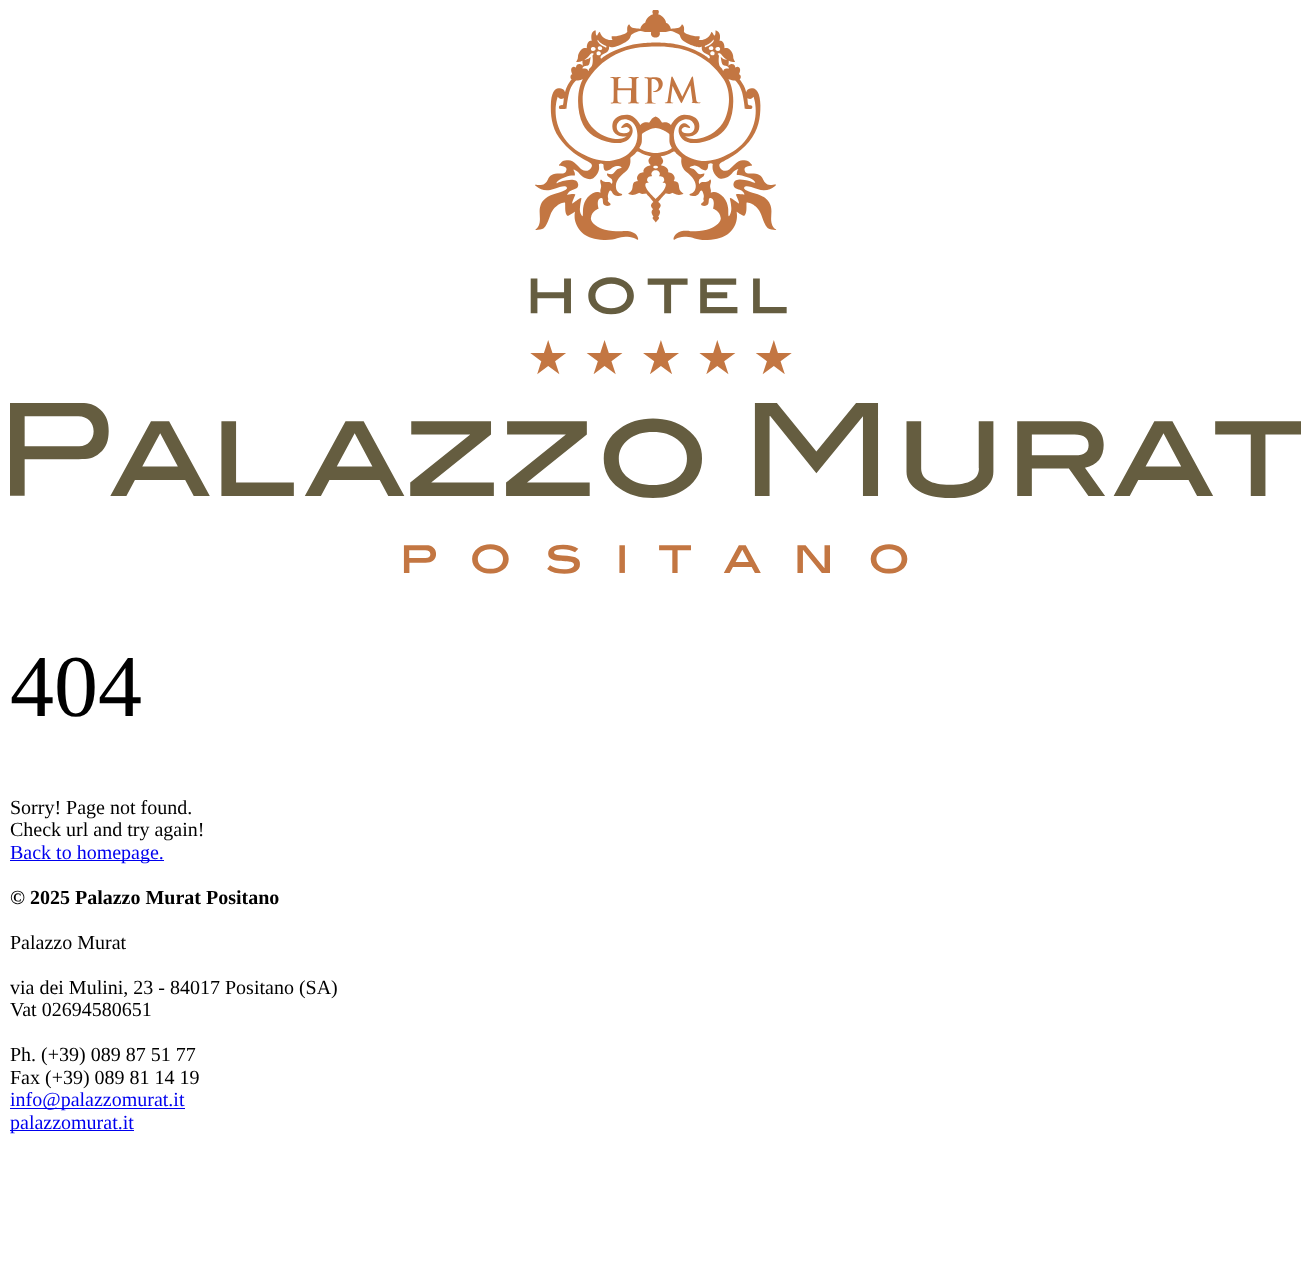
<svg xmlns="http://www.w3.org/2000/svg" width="1311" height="1279">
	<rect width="100%" height="100%" fill="#FFFFFF" />
	<image x="10" y="10" width="1291" height="564" href="assets/img1.png" />
	<text x="10" y="716" font-family="Liberation Serif" font-size="88" fill="#000000">404</text>
	<g font-family="Liberation Serif" font-size="20" fill="#000000">
		<text x="10" y="814">Sorry! Page not found.</text>
		<text x="10" y="836">Check url and try again!</text>
	</g>
	<rect x="10" y="860" width="154" height="1" fill="#0000EE" />
	<text x="10" y="859" font-family="Liberation Serif" font-size="20" fill="#0000EE">Back to homepage.</text>
	<text x="10" y="904" font-family="Liberation Serif" font-size="20" font-weight="700" fill="#000000">© 2025 Palazzo Murat Positano</text>
	<g font-family="Liberation Serif" font-size="20" fill="#000000">
		<text x="10" y="949">Palazzo Murat</text>
		<text x="10" y="994">via dei Mulini, 23 - 84017 Positano (SA)</text>
		<text x="10" y="1016">Vat 02694580651</text>
		<text x="10" y="1061">Ph. (+39) 089 87 51 77</text>
		<text x="10" y="1084">Fax (+39) 089 81 14 19</text>
	</g>
	<rect x="10" y="1108" width="175" height="1" fill="#0000EE" />
	<text x="10" y="1106" font-family="Liberation Serif" font-size="20" fill="#0000EE">info@palazzomurat.it</text>
	<rect x="10" y="1130" width="124" height="1" fill="#0000EE" />
	<text x="10" y="1129" font-family="Liberation Serif" font-size="20" fill="#0000EE">palazzomurat.it</text>
</svg>
